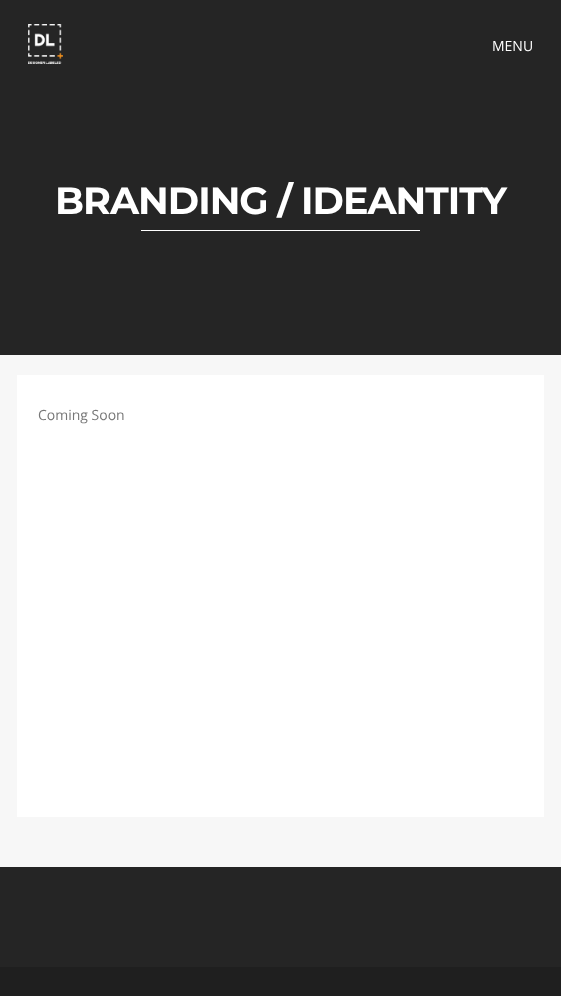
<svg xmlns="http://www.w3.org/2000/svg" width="561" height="996">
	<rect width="100%" height="100%" fill="#F7F7F7" />
	<rect x="0" y="0" width="561" height="355" fill="#252525" />
	<image x="28" y="24" width="35" height="40" href="assets/img1.png" />
	<text x="492" y="51" font-family="Open Sans" font-size="14" fill="#FFFFFF">MENU</text>
	<text x="55" y="214" font-family="Montserrat" font-size="38" font-weight="700" letter-spacing="-1" fill="#FFFFFF">BRANDING / IDEANTITY</text>
	<rect x="141" y="230" width="279" height="1" fill="#FFFFFF" />
	<rect x="17" y="375" width="527" height="442" fill="#FFFFFF" />
	<text x="38" y="420" font-family="Open Sans" font-size="14" fill="#777777">Coming Soon</text>
	<rect x="0" y="867" width="561" height="100" fill="#252525" />
	<rect x="0" y="967" width="561" height="29" fill="#1F1F1F" />
</svg>
